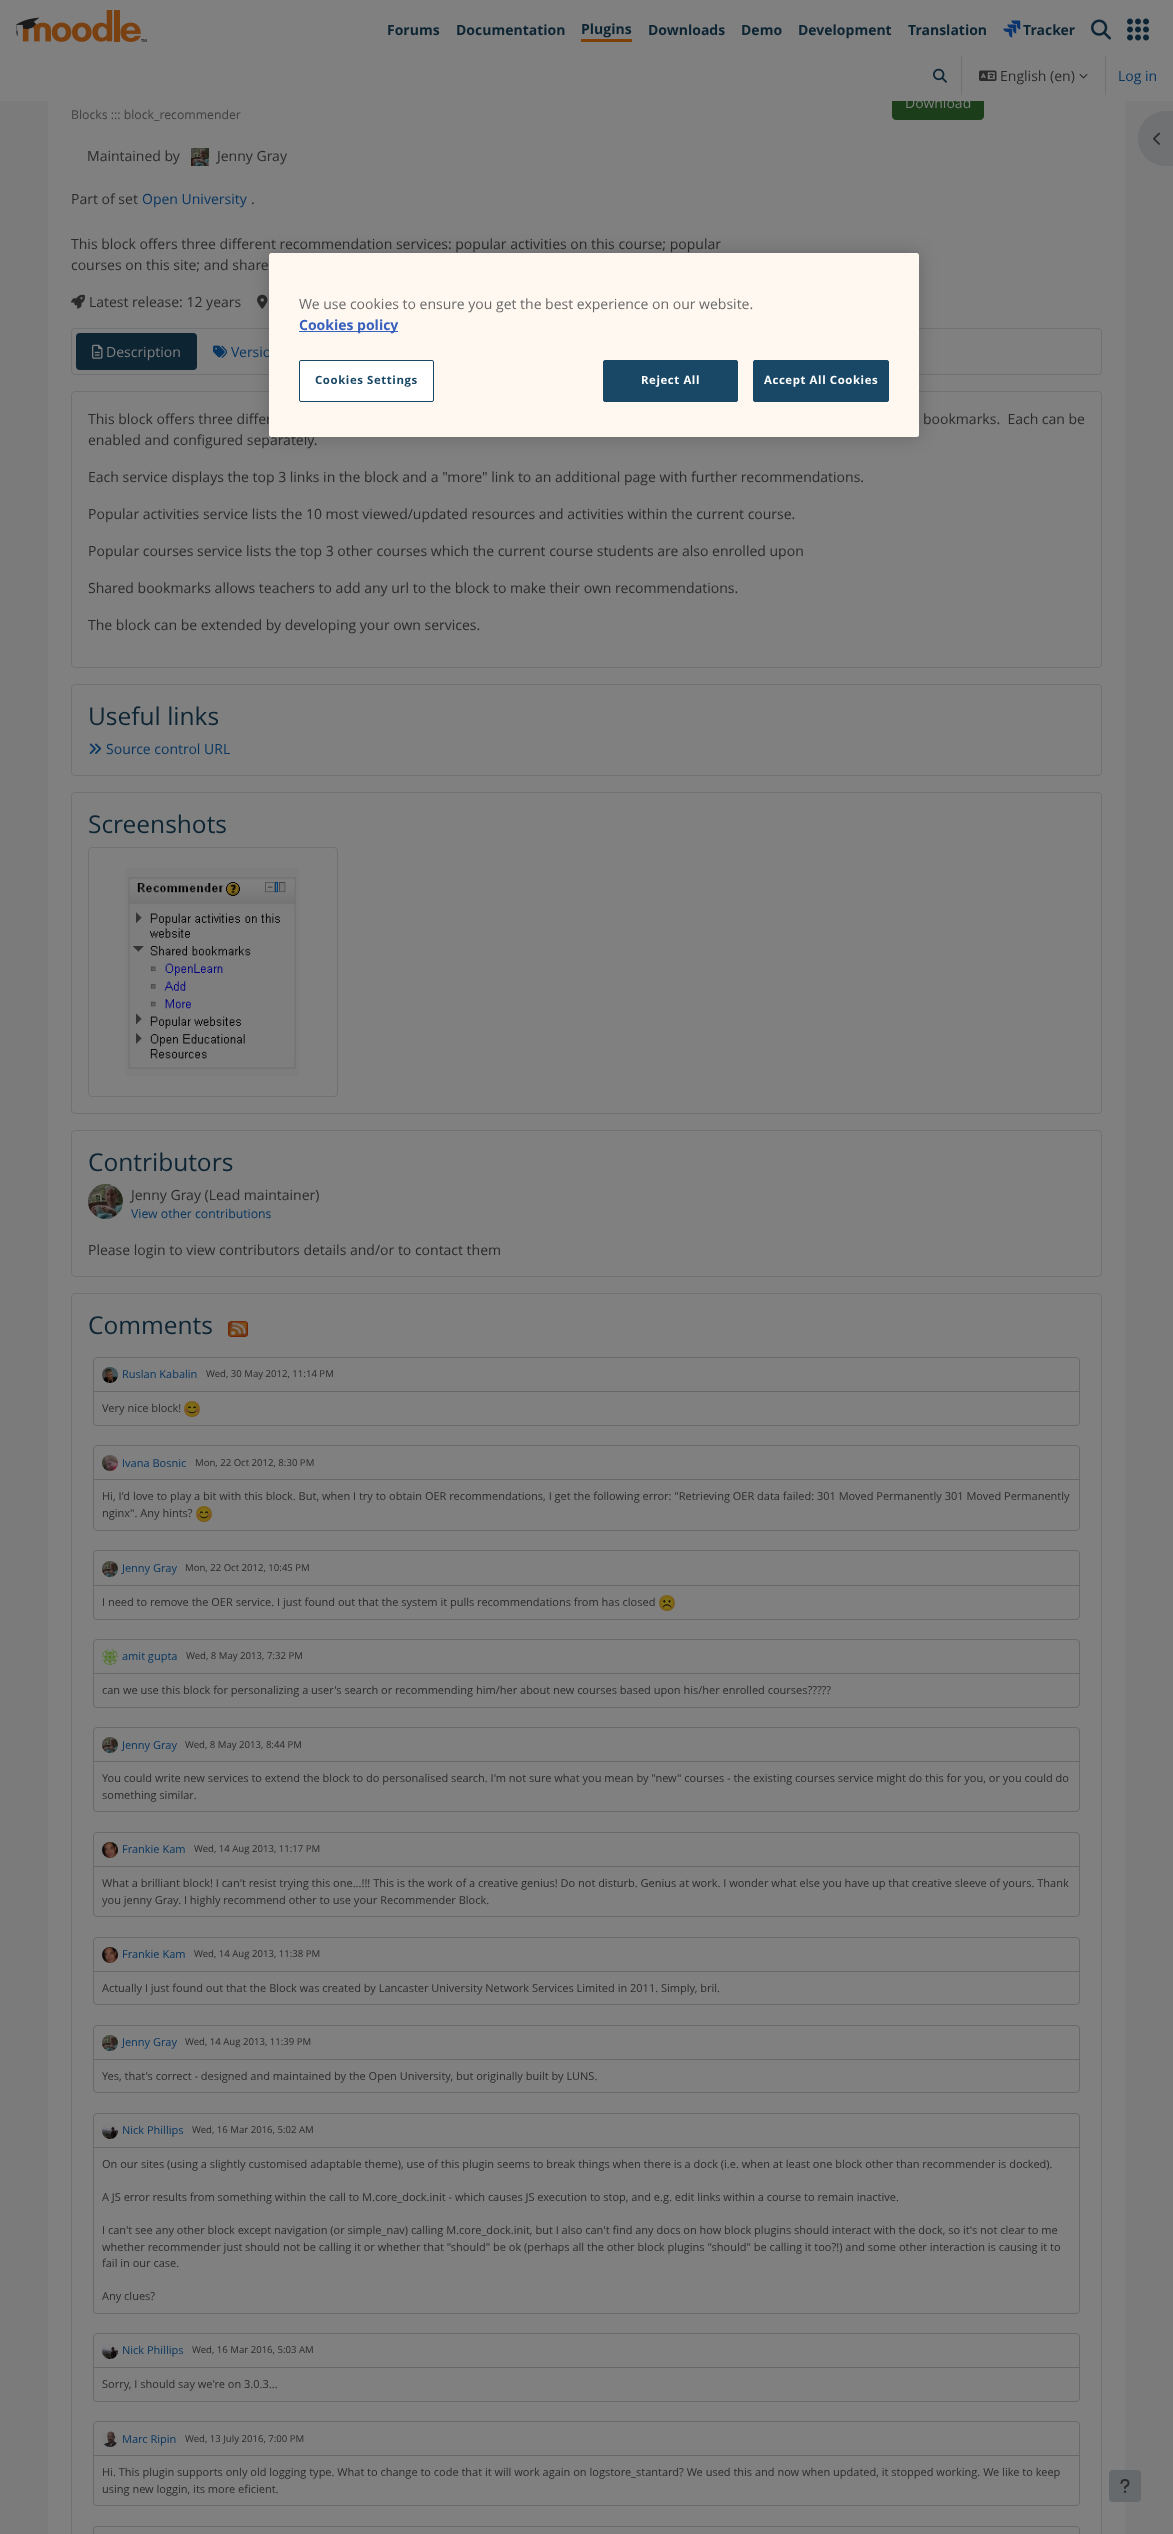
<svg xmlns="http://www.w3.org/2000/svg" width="1173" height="2534">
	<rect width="100%" height="100%" fill="#7B7B7B" />
	<rect x="48" y="101" width="1077" height="2433" fill="#808080" />
	<rect x="892.5" y="85.5" width="91" height="34" rx="3.5" fill="#1B3D19" stroke="#1B3D19" />
	<rect x="0" y="0" width="1173" height="101" fill="#808080" />
	<image x="16" y="10" width="131" height="32" href="assets/img1.png" />
	<g font-family="Open Sans" font-size="14" font-weight="700" fill="#0D2433">
		<text x="387" y="35">Forums</text>
		<text x="456" y="35">Documentation</text>
	</g>
	<rect x="581" y="39" width="51" height="3" fill="#7D4009" />
	<g font-family="Open Sans" font-size="14" font-weight="700" fill="#0D2433">
		<text x="581" y="34">Plugins</text>
		<text x="648" y="35">Downloads</text>
		<text x="741" y="35">Demo</text>
		<text x="798" y="35">Development</text>
		<text x="908" y="35">Translation</text>
	</g>
	<image x="1003" y="20" width="18" height="18" href="assets/img2.png" />
	<text x="1023" y="35" font-family="Open Sans" font-size="14" font-weight="700" fill="#0D2433">Tracker</text>
	<image x="1091" y="19" width="20" height="21" href="assets/img3.png" />
	<image x="1127" y="18" width="22" height="23" href="assets/img4.png" />
	<image x="933" y="68" width="14" height="15" href="assets/img5.png" />
	<rect x="961" y="56" width="1" height="39" fill="#6F7173" />
	<image x="979" y="70" width="18" height="11" href="assets/img6.png" />
	<text x="1000" y="81" font-family="Open Sans" font-size="14" fill="#2A2A2A">English (en)</text>
	<image x="1079" y="74" width="9" height="5" href="assets/img7.png" />
	<rect x="1105" y="56" width="1" height="39" fill="#6F7173" />
	<text x="1118" y="81" font-family="Open Sans" font-size="14" fill="#083660">Log in</text>
	<text x="905" y="108" font-family="Open Sans" font-size="14" fill="#808080">Download</text>
	<text x="71" y="119" font-family="Open Sans" font-size="12.25" fill="#404040">Blocks ::: block_recommender</text>
	<text x="87" y="161" font-family="Open Sans" font-size="14" fill="#2A2A2A">Maintained by</text>
	<image x="191" y="148" width="18" height="18" href="assets/img8.png" />
	<g font-family="Open Sans" font-size="14" fill="#2A2A2A">
		<text x="217" y="161">Jenny Gray</text>
		<text x="71" y="204">Part of set</text>
	</g>
	<text x="142" y="204" font-family="Open Sans" font-size="14" fill="#083660">Open University</text>
	<g font-family="Open Sans" font-size="14" fill="#2A2A2A">
		<text x="251" y="204">.</text>
		<text x="71" y="249">This block offers three different recommendation services: popular activities on this course; popular</text>
		<text x="71" y="270">courses on this site; and share</text>
	</g>
	<image x="71" y="294" width="14" height="15" href="assets/img9.png" />
	<text x="89" y="307" font-family="Open Sans" font-size="14" fill="#2A2A2A">Latest release: 12 years</text>
	<image x="257" y="294" width="11" height="15" href="assets/img10.png" />
	<rect x="71.5" y="328.5" width="1030" height="46" rx="3.5" fill="none" stroke="#6F7173" />
	<rect x="76" y="333" width="121" height="37" rx="4" fill="#0D2433" />
	<image x="92" y="344" width="11" height="15" href="assets/img11.png" />
	<text x="106" y="357" font-family="Open Sans" font-size="14" fill="#808080">Description</text>
	<image x="213" y="345" width="14" height="13" href="assets/img12.png" />
	<text x="231" y="357" font-family="Open Sans" font-size="14" fill="#083660">Versio</text>
	<rect x="71.5" y="391.5" width="1030" height="276" rx="3.5" fill="none" stroke="#6F7173" />
	<g font-family="Open Sans" font-size="14" fill="#2A2A2A">
		<text x="88" y="424">This block offers three differ</text>
		<text x="923" y="424" xml:space="preserve">bookmarks.  Each can be</text>
		<text x="88" y="445">enabled and configured separately.</text>
		<text x="88" y="482">Each service displays the top 3 links in the block and a "more" link to an additional page with further recommendations.</text>
		<text x="88" y="519">Popular activities service lists the 10 most viewed/updated resources and activities within the current course.</text>
		<text x="88" y="556">Popular courses service lists the top 3 other courses which the current course students are also enrolled upon</text>
		<text x="88" y="593">Shared bookmarks allows teachers to add any url to the block to make their own recommendations.</text>
		<text x="88" y="630">The block can be extended by developing your own services.</text>
	</g>
	<rect x="71.5" y="684.5" width="1030" height="91" rx="3.5" fill="none" stroke="#6F7173" />
	<text x="88" y="725" font-family="Open Sans" font-size="24.5" fill="#0D2433">Useful links</text>
	<image x="89" y="743" width="13" height="11" href="assets/img13.png" />
	<text x="106" y="754" font-family="Open Sans" font-size="14" fill="#083660">Source control URL</text>
	<rect x="71.5" y="792.5" width="1030" height="321" rx="3.5" fill="none" stroke="#6F7173" />
	<text x="88" y="833" font-family="Open Sans" font-size="24.5" fill="#0D2433">Screenshots</text>
	<rect x="88.5" y="847.5" width="249" height="249" rx="3.5" fill="none" stroke="#6F7173" />
	<image x="126" y="868" width="173" height="208" href="assets/img14.png" />
	<rect x="71.5" y="1130.5" width="1030" height="146" rx="3.5" fill="none" stroke="#6F7173" />
	<text x="88" y="1171" font-family="Open Sans" font-size="24.5" fill="#0D2433">Contributors</text>
	<image x="88" y="1184" width="35" height="35" href="assets/img15.png" />
	<text x="131" y="1200" font-family="Open Sans" font-size="14" fill="#2A2A2A">Jenny Gray (Lead maintainer)</text>
	<text x="131" y="1218" font-family="Open Sans" font-size="12.25" fill="#083660">View other contributions</text>
	<text x="88" y="1255" font-family="Open Sans" font-size="14" fill="#2A2A2A">Please login to view contributors details and/or to contact them</text>
	<rect x="71.5" y="1293.5" width="1030" height="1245" rx="3.5" fill="none" stroke="#6F7173" />
	<text x="88" y="1334" font-family="Open Sans" font-size="24.5" fill="#0D2433">Comments</text>
	<image x="228" y="1321" width="20" height="16" href="assets/img16.png" />
	<rect x="93.5" y="1357.5" width="986" height="68" rx="3.5" fill="none" stroke="#696969" />
	<rect x="94" y="1391" width="985" height="1" fill="#676767" />
	<image x="102" y="1367" width="16" height="16" href="assets/img17.png" />
	<text x="122" y="1378" font-family="Open Sans" font-size="11" fill="#083660">Ruslan Kabalin</text>
	<text x="206" y="1377" font-family="Open Sans" font-size="9.6" fill="#2A2A2A">Wed, 30 May 2012, 11:14 PM</text>
	<text x="102" y="1412" font-family="Open Sans" font-size="11" fill="#2A2A2A">Very nice block!</text>
	<image x="184" y="1401" width="16" height="16" href="assets/img18.png" />
	<rect x="93.5" y="1445.5" width="986" height="85" rx="3.5" fill="none" stroke="#696969" />
	<rect x="94" y="1479" width="985" height="1" fill="#676767" />
	<image x="102" y="1455" width="16" height="16" href="assets/img19.png" />
	<text x="122" y="1467" font-family="Open Sans" font-size="11" fill="#083660">Ivana Bosnic</text>
	<text x="195" y="1466" font-family="Open Sans" font-size="9.6" fill="#2A2A2A">Mon, 22 Oct 2012, 8:30 PM</text>
	<g font-family="Open Sans" font-size="11" fill="#2A2A2A">
		<text x="102" y="1500">Hi, I'd love to play a bit with this block. But, when I try to obtain OER recommendations, I get the following error: "Retrieving OER data failed: 301 Moved Permanently 301 Moved Permanently</text>
		<text x="102" y="1517">nginx". Any hints?</text>
	</g>
	<image x="196" y="1506" width="16" height="16" href="assets/img18.png" />
	<rect x="93.5" y="1550.5" width="986" height="69" rx="3.5" fill="none" stroke="#696969" />
	<rect x="94" y="1585" width="985" height="1" fill="#676767" />
	<image x="102" y="1561" width="16" height="16" href="assets/img20.png" />
	<text x="122" y="1572" font-family="Open Sans" font-size="11" fill="#083660">Jenny Gray</text>
	<text x="185" y="1571" font-family="Open Sans" font-size="9.6" fill="#2A2A2A">Mon, 22 Oct 2012, 10:45 PM</text>
	<text x="102" y="1606" font-family="Open Sans" font-size="11" fill="#2A2A2A">I need to remove the OER service. I just found out that the system it pulls recommendations from has closed</text>
	<image x="659" y="1595" width="16" height="16" href="assets/img21.png" />
	<rect x="93.5" y="1639.5" width="986" height="68" rx="3.5" fill="none" stroke="#696969" />
	<rect x="94" y="1673" width="985" height="1" fill="#676767" />
	<image x="102" y="1649" width="16" height="16" href="assets/img22.png" />
	<text x="122" y="1660" font-family="Open Sans" font-size="11" fill="#083660">amit gupta</text>
	<text x="186" y="1659" font-family="Open Sans" font-size="9.6" fill="#2A2A2A">Wed, 8 May 2013, 7:32 PM</text>
	<text x="102" y="1694" font-family="Open Sans" font-size="11" fill="#2A2A2A">can we use this block for personalizing a user's search or recommending him/her about new courses based upon his/her enrolled courses?????</text>
	<rect x="93.5" y="1727.5" width="986" height="84" rx="3.5" fill="none" stroke="#696969" />
	<rect x="94" y="1761" width="985" height="1" fill="#676767" />
	<image x="102" y="1737" width="16" height="16" href="assets/img20.png" />
	<text x="122" y="1749" font-family="Open Sans" font-size="11" fill="#083660">Jenny Gray</text>
	<text x="185" y="1748" font-family="Open Sans" font-size="9.6" fill="#2A2A2A">Wed, 8 May 2013, 8:44 PM</text>
	<g font-family="Open Sans" font-size="11" fill="#2A2A2A">
		<text x="102" y="1782">You could write new services to extend the block to do personalised search. I'm not sure what you mean by "new" courses - the existing courses service might do this for you, or you could do</text>
		<text x="102" y="1799">something similar.</text>
	</g>
	<rect x="93.5" y="1832.5" width="986" height="84" rx="3.5" fill="none" stroke="#696969" />
	<rect x="94" y="1866" width="985" height="1" fill="#676767" />
	<image x="102" y="1842" width="16" height="16" href="assets/img23.png" />
	<text x="122" y="1853" font-family="Open Sans" font-size="11" fill="#083660">Frankie Kam</text>
	<text x="194" y="1852" font-family="Open Sans" font-size="9.6" fill="#2A2A2A">Wed, 14 Aug 2013, 11:17 PM</text>
	<g font-family="Open Sans" font-size="11" fill="#2A2A2A">
		<text x="102" y="1887">What a brilliant block! I can't resist trying this one...!!! This is the work of a creative genius! Do not disturb. Genius at work. I wonder what else you have up that creative sleeve of yours. Thank</text>
		<text x="102" y="1904">you jenny Gray. I highly recommend other to use your Recommender Block.</text>
	</g>
	<rect x="93.5" y="1937.5" width="986" height="67" rx="3.5" fill="none" stroke="#696969" />
	<rect x="94" y="1971" width="985" height="1" fill="#676767" />
	<image x="102" y="1947" width="16" height="16" href="assets/img23.png" />
	<text x="122" y="1958" font-family="Open Sans" font-size="11" fill="#083660">Frankie Kam</text>
	<text x="194" y="1957" font-family="Open Sans" font-size="9.6" fill="#2A2A2A">Wed, 14 Aug 2013, 11:38 PM</text>
	<text x="102" y="1992" font-family="Open Sans" font-size="11" fill="#2A2A2A">Actually I just found out that the Block was created by Lancaster University Network Services Limited in 2011. Simply, bril.</text>
	<rect x="93.5" y="2025.5" width="986" height="67" rx="3.5" fill="none" stroke="#696969" />
	<rect x="94" y="2059" width="985" height="1" fill="#676767" />
	<image x="102" y="2035" width="16" height="16" href="assets/img20.png" />
	<text x="122" y="2046" font-family="Open Sans" font-size="11" fill="#083660">Jenny Gray</text>
	<text x="185" y="2045" font-family="Open Sans" font-size="9.6" fill="#2A2A2A">Wed, 14 Aug 2013, 11:39 PM</text>
	<text x="102" y="2080" font-family="Open Sans" font-size="11" fill="#2A2A2A">Yes, that's correct - designed and maintained by the Open University, but originally built by LUNS.</text>
	<rect x="93.5" y="2113.5" width="986" height="200" rx="3.5" fill="none" stroke="#696969" />
	<rect x="94" y="2147" width="985" height="1" fill="#676767" />
	<image x="102" y="2123" width="16" height="16" href="assets/img24.png" />
	<text x="122" y="2134" font-family="Open Sans" font-size="11" fill="#083660">Nick Phillips</text>
	<text x="192" y="2133" font-family="Open Sans" font-size="9.6" fill="#2A2A2A">Wed, 16 Mar 2016, 5:02 AM</text>
	<g font-family="Open Sans" font-size="11" fill="#2A2A2A">
		<text x="102" y="2168">On our sites (using a slightly customised adaptable theme), use of this plugin seems to break things when there is a dock (i.e. when at least one block other than recommender is docked).</text>
		<text x="102" y="2201">A JS error results from something within the call to M.core_dock.init - which causes JS execution to stop, and e.g. edit links within a course to remain inactive.</text>
		<text x="102" y="2234">I can't see any other block except navigation (or simple_nav) calling M.core_dock.init, but I also can't find any docs on how block plugins should interact with the dock, so it's not clear to me</text>
		<text x="102" y="2251">whether recommender just should not be calling it or whether that "should" be ok (perhaps all the other block plugins "should" be calling it too?!) and some other interaction is causing it to</text>
		<text x="102" y="2267">fail in our case.</text>
		<text x="102" y="2300">Any clues?</text>
	</g>
	<rect x="93.5" y="2333.5" width="986" height="68" rx="3.5" fill="none" stroke="#696969" />
	<rect x="94" y="2367" width="985" height="1" fill="#676767" />
	<image x="102" y="2343" width="16" height="16" href="assets/img24.png" />
	<text x="122" y="2354" font-family="Open Sans" font-size="11" fill="#083660">Nick Phillips</text>
	<text x="192" y="2353" font-family="Open Sans" font-size="9.6" fill="#2A2A2A">Wed, 16 Mar 2016, 5:03 AM</text>
	<text x="102" y="2388" font-family="Open Sans" font-size="11" fill="#2A2A2A">Sorry, I should say we're on 3.0.3...</text>
	<rect x="93.5" y="2421.5" width="986" height="84" rx="3.5" fill="none" stroke="#696969" />
	<rect x="94" y="2455" width="985" height="1" fill="#676767" />
	<image x="102" y="2431" width="16" height="16" href="assets/img25.png" />
	<text x="122" y="2443" font-family="Open Sans" font-size="11" fill="#083660">Marc Ripin</text>
	<text x="185" y="2442" font-family="Open Sans" font-size="9.6" fill="#2A2A2A">Wed, 13 July 2016, 7:00 PM</text>
	<g font-family="Open Sans" font-size="11" fill="#2A2A2A">
		<text x="102" y="2476">Hi. This plugin supports only old logging type. What to change to code that it will work again on logstore_stantard? We used this and now when updated, it stopped working. We like to keep</text>
		<text x="102" y="2493">using new loggin, its more eficient.</text>
	</g>
	<rect x="93.5" y="2526.5" width="986" height="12" rx="3.5" fill="none" stroke="#696969" />
	<path d="M1165.5 111H1173V166H1165.5C1150.5 166 1138 153.5 1138 138.5C1138 123.5 1150.5 111 1165.5 111Z" fill="#6F7173" />
	<image x="1153" y="132" width="7" height="13" href="assets/img26.png" />
	<rect x="1109" y="2470" width="32" height="32" rx="4" fill="#676A6D" />
	<image x="1120" y="2479" width="10" height="14" href="assets/img27.png" />
	<rect x="269" y="253" width="650" height="184" rx="2.5" fill="#000000" fill-opacity="0.2" filter="blur(9px)" />
	<rect x="269" y="253" width="650" height="184" rx="2.5" fill="#FFF8F1" />
	<text x="299" y="309" font-family="Open Sans" font-size="14" fill="#696969">We use cookies to ensure you get the best experience on our website.</text>
	<rect x="299" y="331" width="99" height="1" fill="#3860BE" />
	<text x="299" y="330" font-family="Open Sans" font-size="14" font-weight="700" fill="#3860BE">Cookies policy</text>
	<rect x="299.5" y="360.5" width="134" height="41" rx="1.5" fill="#FFFFFF" stroke="#194866" />
	<text x="315" y="384" font-family="Open Sans" font-size="11.4" font-weight="700" letter-spacing="0.6" fill="#194866">Cookies Settings</text>
	<rect x="603.5" y="360.5" width="134" height="41" rx="1.5" fill="#194866" stroke="#194866" />
	<text x="641" y="384" font-family="Open Sans" font-size="11.4" font-weight="700" letter-spacing="0.6" fill="#FFFFFF">Reject All</text>
	<rect x="753.5" y="360.5" width="135" height="41" rx="1.5" fill="#194866" stroke="#194866" />
	<text x="764" y="384" font-family="Open Sans" font-size="11.4" font-weight="700" letter-spacing="0.6" fill="#FFFFFF">Accept All Cookies</text>
</svg>
